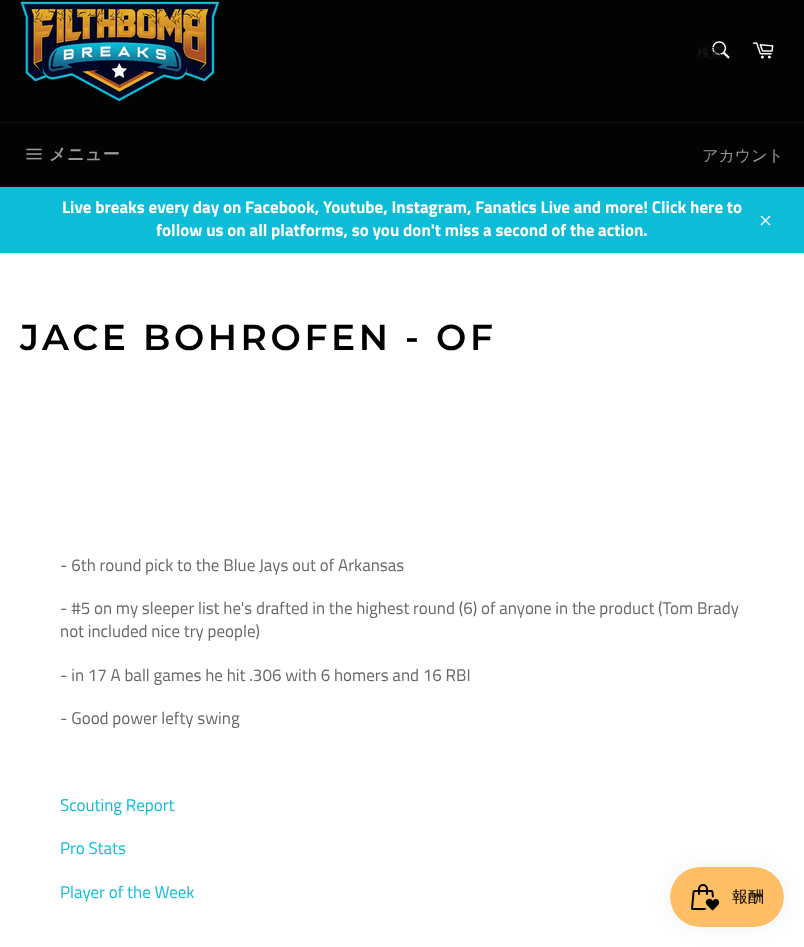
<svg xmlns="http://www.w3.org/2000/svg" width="804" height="947">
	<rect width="100%" height="100%" fill="#FFFFFF" />
	<rect x="0" y="0" width="804" height="122" fill="#030303" />
	<image x="20" y="1" width="200" height="101" href="assets/img1.png" />
	<image x="712" y="41" width="18" height="18" href="assets/img2.png" />
	<text x="697" y="57" font-family="WenQuanYi Zen Hei" font-size="13" font-weight="500" fill="#1C1C1C">検索</text>
	<image x="752" y="42" width="22" height="17" href="assets/img3.png" />
	<rect x="0" y="123" width="804" height="64" fill="#030303" />
	<rect x="0" y="122" width="804" height="1" fill="#101010" />
	<image x="26" y="148" width="16" height="12" href="assets/img4.png" />
	<text x="49" y="160" font-family="WenQuanYi Zen Hei" font-size="17" font-weight="700" letter-spacing="0.5" fill="#9A9A9A">メニュー</text>
	<text x="702" y="161" font-family="WenQuanYi Zen Hei" font-size="16" font-weight="500" fill="#9A9A9A">アカウント</text>
	<rect x="0" y="187" width="804" height="66" fill="#0DBCD7" />
	<g font-family="Titillium Web" font-size="17" font-weight="700" fill="#FFFFFF">
		<text x="62" y="213">Live breaks every day on Facebook, Youtube, Instagram, Fanatics Live and more! Click here to</text>
		<text x="156" y="236">follow us on all platforms, so you don't miss a second of the action.</text>
	</g>
	<image x="760" y="215" width="11" height="11" href="assets/img5.png" />
	<text x="20" y="350" font-family="Montserrat" font-size="36" font-weight="600" letter-spacing="3.6" fill="#000000">JACE BOHROFEN - OF</text>
	<g font-family="Titillium Web" font-size="17" fill="#666666">
		<text x="60" y="571">- 6th round pick to the Blue Jays out of Arkansas</text>
		<text x="60" y="614">- #5 on my sleeper list he's drafted in the highest round (6) of anyone in the product (Tom Brady</text>
		<text x="60" y="637">not included nice try people)</text>
		<text x="60" y="681">- in 17 A ball games he hit .306 with 6 homers and 16 RBI</text>
		<text x="60" y="724">- Good power lefty swing</text>
	</g>
	<g font-family="Titillium Web" font-size="17" fill="#0DBCD7">
		<text x="60" y="811">Scouting Report</text>
		<text x="60" y="854">Pro Stats</text>
		<text x="60" y="898">Player of the Week</text>
	</g>
	<rect x="670" y="867" width="114" height="60" rx="30" fill="#000000" fill-opacity="0.05" filter="blur(12.5px)" />
	<image x="670" y="867" width="114" height="60" href="assets/img6.png" />
</svg>
